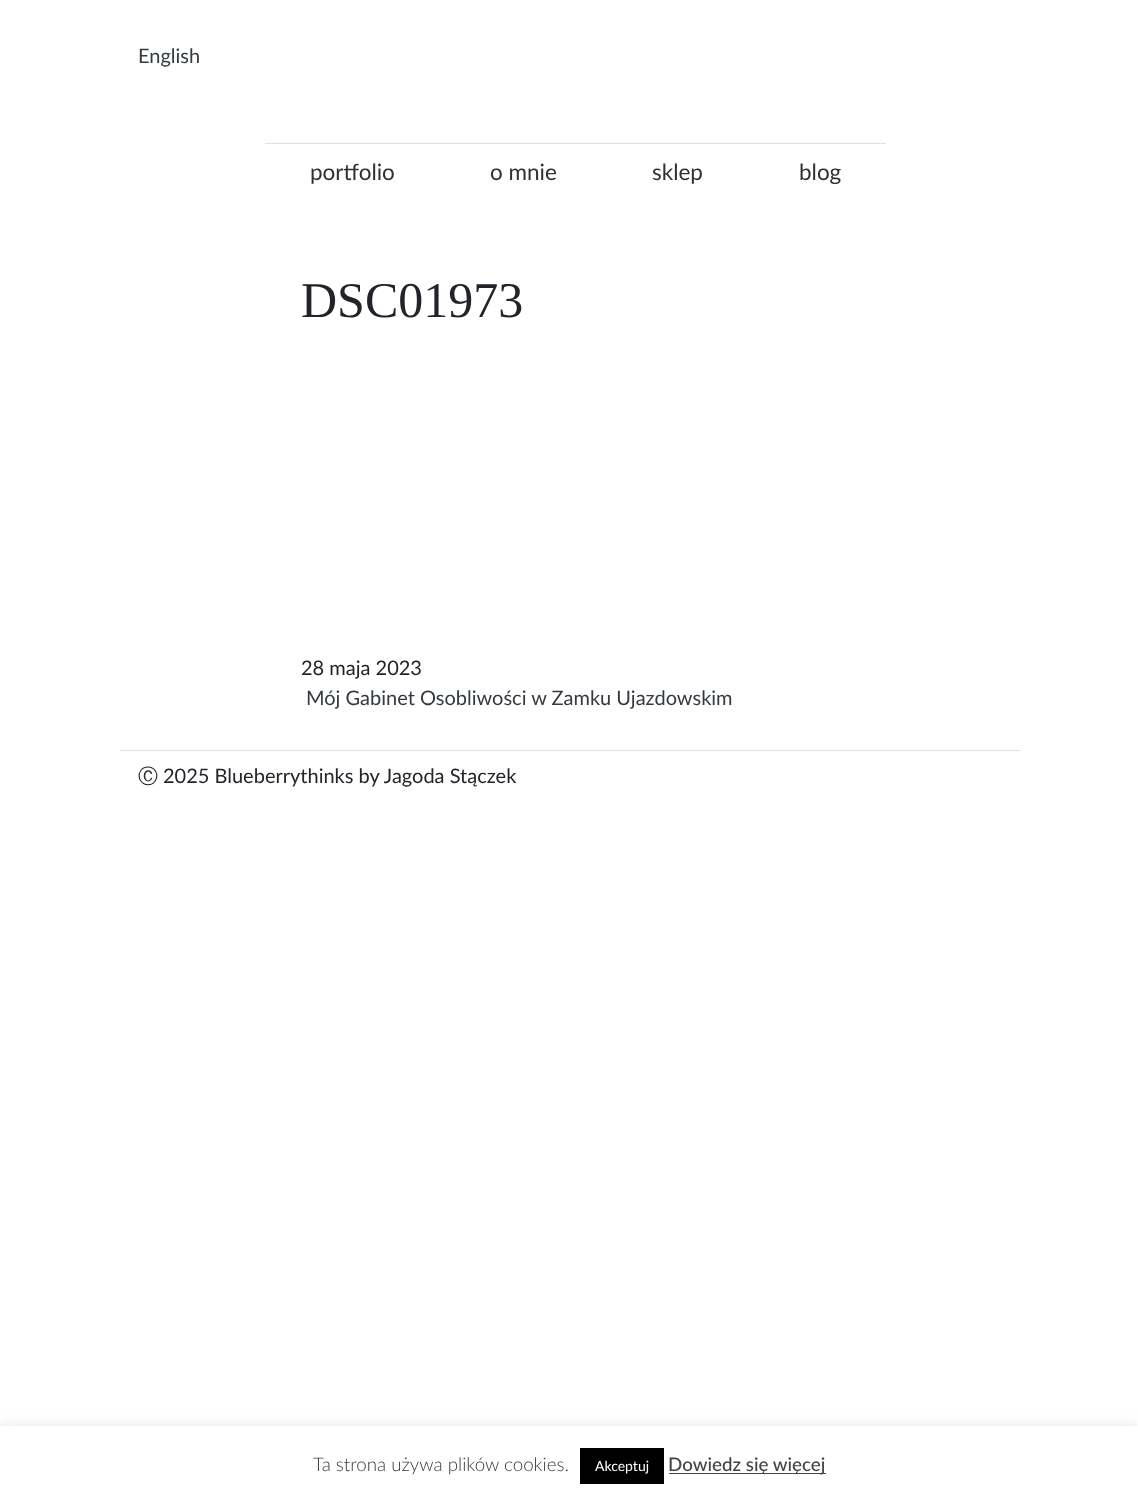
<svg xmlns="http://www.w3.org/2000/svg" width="1138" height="1498">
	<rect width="100%" height="100%" fill="#FFFFFF" />
	<text x="138" y="63" font-family="Lato" font-size="20" fill="#343A40">English</text>
	<rect x="265" y="143" width="621" height="1" fill="#DEE2E6" />
	<g font-family="Lato" font-size="22.5" fill="#303030">
		<text x="310" y="180">portfolio</text>
		<text x="490" y="180">o mnie</text>
		<text x="652" y="180">sklep</text>
		<text x="799" y="180">blog</text>
	</g>
	<text x="301" y="317" font-family="Liberation Serif" font-size="50" fill="#212529">DSC01973</text>
	<text x="301" y="675" font-family="Lato" font-size="20" fill="#212529">28 maja 2023</text>
	<text x="306" y="705" font-family="Lato" font-size="20" fill="#343A40">Mój Gabinet Osobliwości w Zamku Ujazdowskim</text>
	<rect x="120" y="750" width="900" height="1" fill="#DEE2E6" />
	<text x="138" y="783" font-family="WenQuanYi Zen Hei" font-size="20" font-weight="500" fill="#212529">Ⓒ</text>
	<text x="163" y="783" font-family="Lato" font-size="20" fill="#212529">2025 Blueberrythinks by Jagoda Stączek</text>
	<rect x="0" y="1425" width="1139" height="73" fill="#ACABAB" fill-opacity="0.3" filter="blur(6px)" />
	<rect x="0" y="1426" width="1138" height="72" fill="#FFFFFF" />
	<text x="313" y="1471" font-family="Lato" font-size="18.75" font-weight="300" fill="#383838">Ta strona używa plików cookies.</text>
	<rect x="580" y="1448" width="84" height="36" fill="#000000" />
	<text x="595" y="1471" font-family="Lato" font-size="14" fill="#FFFFFF">Akceptuj</text>
	<rect x="669" y="1473" width="157" height="1" fill="#444444" />
	<text x="668" y="1471" font-family="Lato" font-size="18.75" font-weight="500" fill="#444444">Dowiedz się więcej</text>
</svg>
